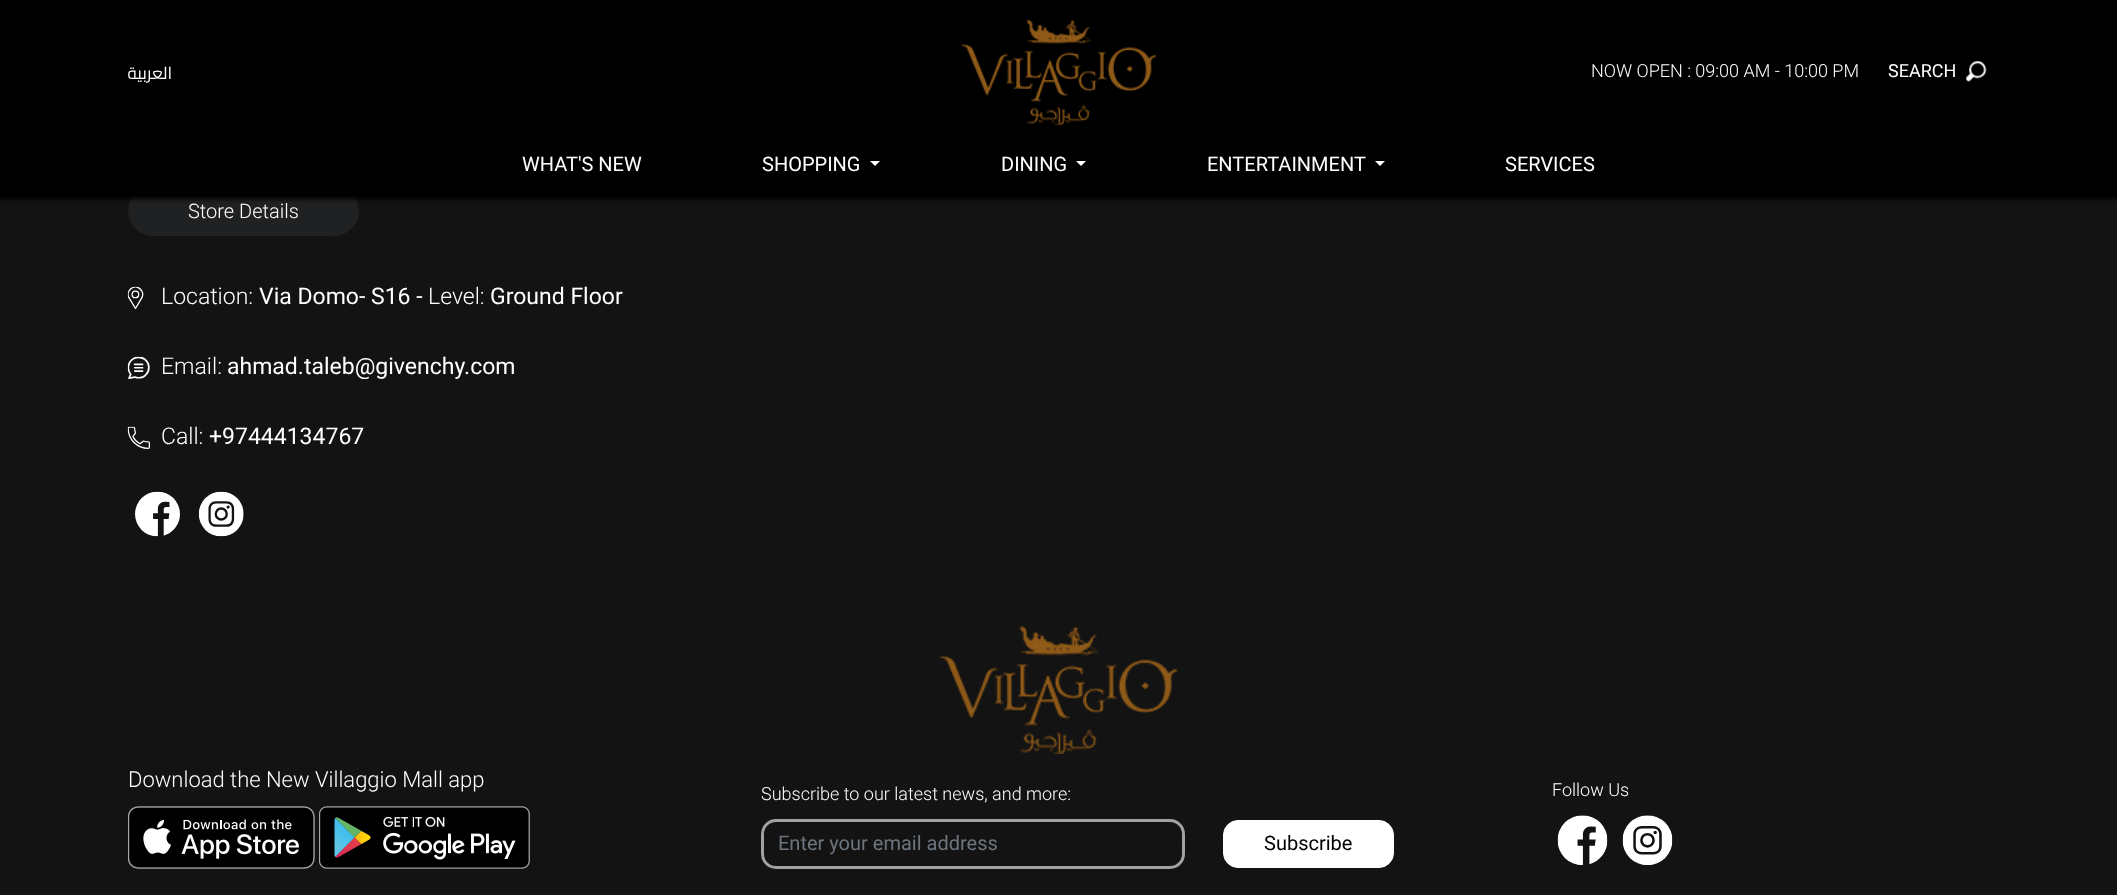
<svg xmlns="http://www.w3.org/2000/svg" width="2117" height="895">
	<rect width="100%" height="100%" fill="#131313" />
	<rect x="128" y="186" width="231" height="50" rx="25" fill="#202122" />
	<rect x="-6" y="-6" width="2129" height="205" fill="#000000" filter="blur(2px)" />
	<text x="172" y="79" font-family="Cairo" font-size="17" direction="rtl" fill="#FFFFFF">العربية</text>
	<image x="961" y="20" width="195" height="105" href="assets/img1.png" />
	<text x="1591" y="77" font-family="Roboto" font-size="18" font-weight="300" fill="#FFFFFF">NOW OPEN : 09:00 AM - 10:00 PM</text>
	<text x="1888" y="77" font-family="Roboto" font-size="18" fill="#FFFFFF">SEARCH</text>
	<image x="1966" y="61" width="21" height="21" href="assets/img2.png" />
	<g font-family="Roboto" font-size="20" fill="#FFFFFF">
		<text x="522" y="171">WHAT'S NEW</text>
		<text x="762" y="171">SHOPPING</text>
	</g>
	<path d="M870 161H880L875 166Z" fill="#FFFFFF" />
	<text x="1001" y="171" font-family="Roboto" font-size="20" fill="#FFFFFF">DINING</text>
	<path d="M1076 161H1086L1081 166Z" fill="#FFFFFF" />
	<text x="1207" y="171" font-family="Roboto" font-size="20" fill="#FFFFFF">ENTERTAINMENT</text>
	<path d="M1375 161H1385L1380 166Z" fill="#FFFFFF" />
	<text x="1505" y="171" font-family="Roboto" font-size="20" fill="#FFFFFF">SERVICES</text>
	<text x="188" y="218" font-family="Roboto" font-size="20" font-weight="300" fill="#FFFFFF">Store Details</text>
	<image x="127" y="286" width="17" height="23" href="assets/img3.png" />
	<text x="161" y="304" font-family="Roboto" font-size="23" font-weight="300" fill="#FFFFFF">Location:</text>
	<text x="259" y="304" font-family="Roboto" font-size="23" fill="#FFFFFF">Via Domo- S16 -</text>
	<text x="428" y="304" font-family="Roboto" font-size="23" font-weight="300" fill="#FFFFFF">Level:</text>
	<text x="490" y="304" font-family="Roboto" font-size="23" fill="#FFFFFF">Ground Floor</text>
	<image x="127" y="356" width="23" height="23" href="assets/img4.png" />
	<text x="161" y="374" font-family="Roboto" font-size="23" font-weight="300" fill="#FFFFFF">Email:</text>
	<text x="227" y="374" font-family="Roboto" font-size="23" fill="#FFFFFF">ahmad.taleb@givenchy.com</text>
	<image x="127" y="426" width="23" height="23" href="assets/img5.png" />
	<text x="161" y="444" font-family="Roboto" font-size="23" font-weight="300" fill="#FFFFFF">Call:</text>
	<text x="209" y="444" font-family="Roboto" font-size="23" fill="#FFFFFF">+97444134767</text>
	<image x="135" y="491" width="45" height="46" href="assets/img6.png" />
	<image x="199" y="491" width="45" height="46" href="assets/img7.png" />
	<image x="940" y="626" width="238" height="128" href="assets/img8.png" />
	<text x="128" y="787" font-family="Roboto" font-size="22" font-weight="300" fill="#FFFFFF">Download the New Villaggio Mall app</text>
	<image x="128" y="806" width="187" height="63" href="assets/img9.png" />
	<image x="319" y="806" width="211" height="63" href="assets/img10.png" />
	<text x="761" y="800" font-family="Roboto" font-size="18" font-weight="300" fill="#FFFFFF">Subscribe to our latest news, and more:</text>
	<rect x="762.5" y="820.5" width="421" height="47" rx="13.5" fill="none" stroke="#A1A1A6" stroke-width="3" />
	<text x="778" y="850" font-family="Roboto" font-size="20" fill="#6C757D">Enter your email address</text>
	<rect x="1223.5" y="820.5" width="170" height="47" rx="14.5" fill="#FFFFFF" stroke="#FFFFFF" />
	<text x="1264" y="850" font-family="Roboto" font-size="20" fill="#000000">Subscribe</text>
	<text x="1552" y="796" font-family="Roboto" font-size="18" font-weight="300" fill="#FFFFFF">Follow Us</text>
	<image x="1557" y="815" width="51" height="50" href="assets/img11.png" />
	<image x="1622" y="815" width="51" height="50" href="assets/img12.png" />
</svg>
